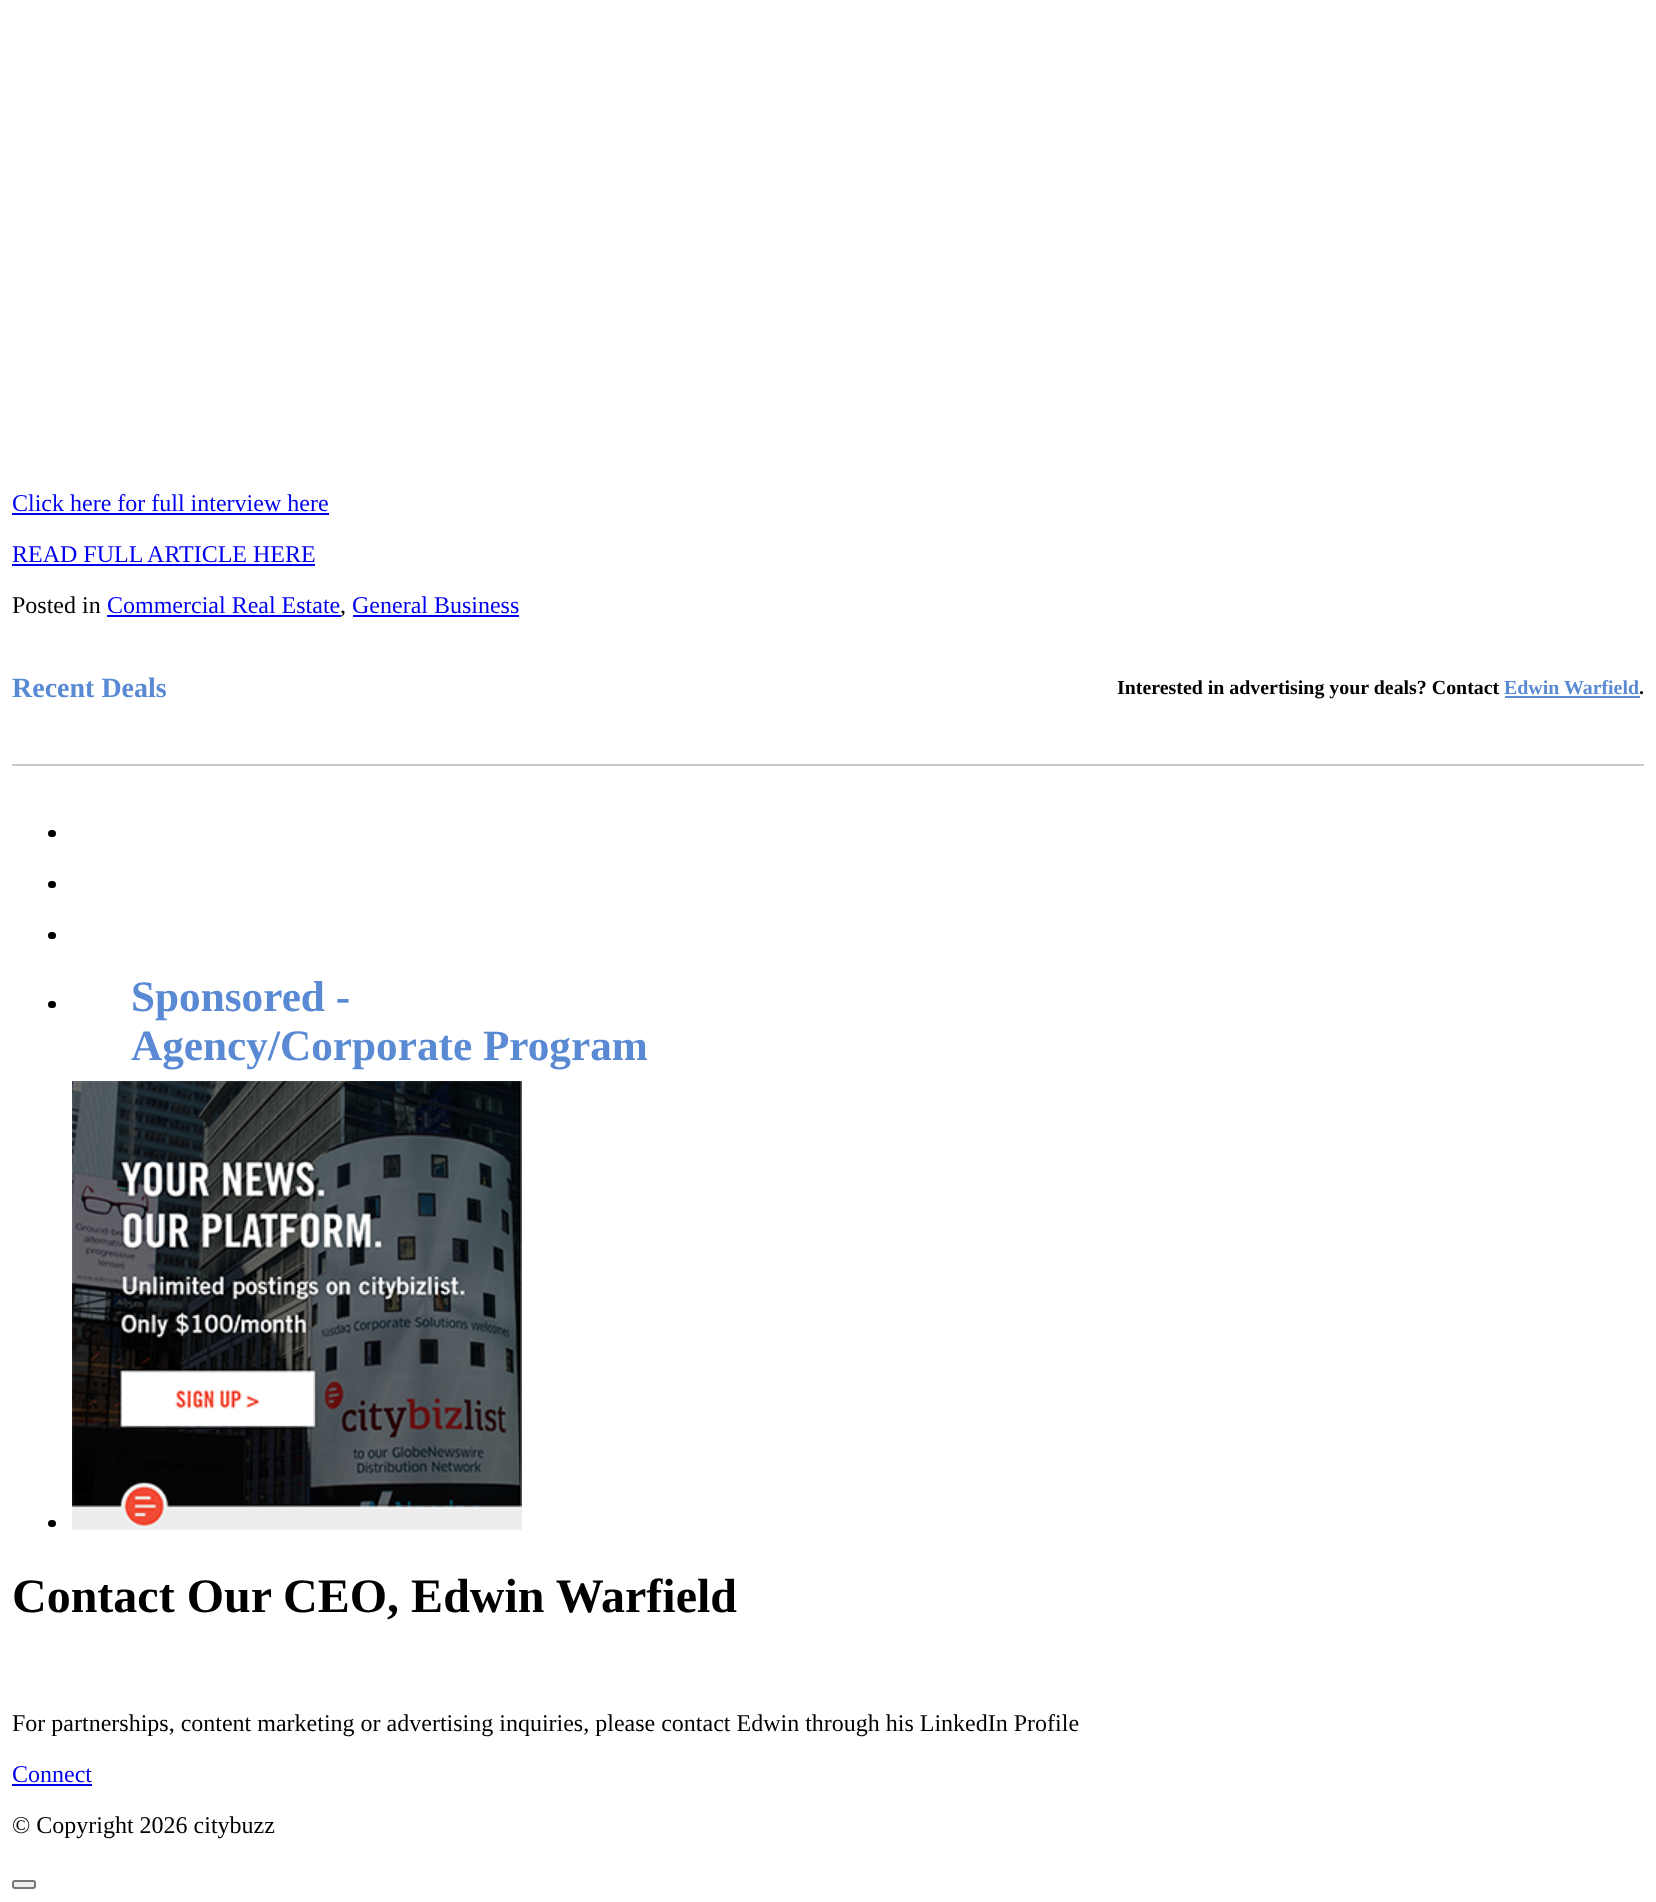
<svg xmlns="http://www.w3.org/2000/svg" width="1656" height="1902">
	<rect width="100%" height="100%" fill="#FFFFFF" />
	<text x="12" y="511" font-family="Liberation Serif" font-size="24" fill="#0000EE">Click here for full interview here</text>
	<rect x="12" y="513" width="317" height="2" fill="#0000EE" />
	<text x="12" y="562" font-family="Liberation Serif" font-size="24" fill="#0000EE">READ FULL ARTICLE HERE</text>
	<rect x="12" y="564" width="303" height="2" fill="#0000EE" />
	<text x="12" y="613" font-family="Liberation Serif" font-size="24" fill="#000000">Posted in</text>
	<text x="107" y="613" font-family="Liberation Serif" font-size="24" fill="#0000EE">Commercial Real Estate</text>
	<rect x="107" y="615" width="234" height="2" fill="#0000EE" />
	<text x="340" y="613" font-family="Liberation Serif" font-size="24" fill="#000000">,</text>
	<text x="352" y="613" font-family="Liberation Serif" font-size="24" fill="#0000EE">General Business</text>
	<rect x="353" y="615" width="166" height="2" fill="#0000EE" />
	<rect x="12" y="764" width="1632" height="2" fill="#C9C9C9" />
	<text x="12" y="697" font-family="Liberation Serif" font-size="28" font-weight="700" fill="#598AD3">Recent Deals</text>
	<text x="1117" y="694" font-family="Liberation Serif" font-size="19.9" font-weight="700" fill="#000000">Interested in advertising your deals? Contact</text>
	<text x="1504" y="694" font-family="Liberation Serif" font-size="19.9" font-weight="700" fill="#598AD3">Edwin Warfield</text>
	<rect x="1505" y="696" width="135" height="2" fill="#598AD3" />
	<text x="1639" y="694" font-family="Liberation Serif" font-size="19.9" font-weight="700" fill="#000000">.</text>
	<rect x="48" y="830" width="8" height="7" rx="3.5" fill="#000000" />
	<rect x="48" y="881" width="8" height="7" rx="3.5" fill="#000000" />
	<rect x="48" y="932" width="8" height="7" rx="3.5" fill="#000000" />
	<rect x="48" y="1001" width="8" height="7" rx="3.5" fill="#000000" />
	<g font-family="Liberation Serif" font-size="43.25" font-weight="700" fill="#598AD3">
		<text x="131" y="1011">Sponsored -</text>
		<text x="131" y="1060">Agency/Corporate Program</text>
	</g>
	<rect x="48" y="1520" width="8" height="7" rx="3.5" fill="#000000" />
	<image x="72" y="1081" width="450" height="449" href="assets/img1.png" />
	<text x="12" y="1612" font-family="Liberation Serif" font-size="48" font-weight="700" fill="#000000">Contact Our CEO, Edwin Warfield</text>
	<text x="12" y="1731" font-family="Liberation Serif" font-size="24" fill="#000000">For partnerships, content marketing or advertising inquiries, please contact Edwin through his LinkedIn Profile</text>
	<text x="12" y="1782" font-family="Liberation Serif" font-size="24" fill="#0000EE">Connect</text>
	<rect x="12" y="1784" width="80" height="2" fill="#0000EE" />
	<text x="12" y="1833" font-family="Liberation Serif" font-size="24" fill="#000000">© Copyright 2026 citybuzz</text>
	<rect x="13" y="1881" width="22" height="7" rx="2" fill="#EFEFEF" stroke="#767676" stroke-width="2" />
</svg>
